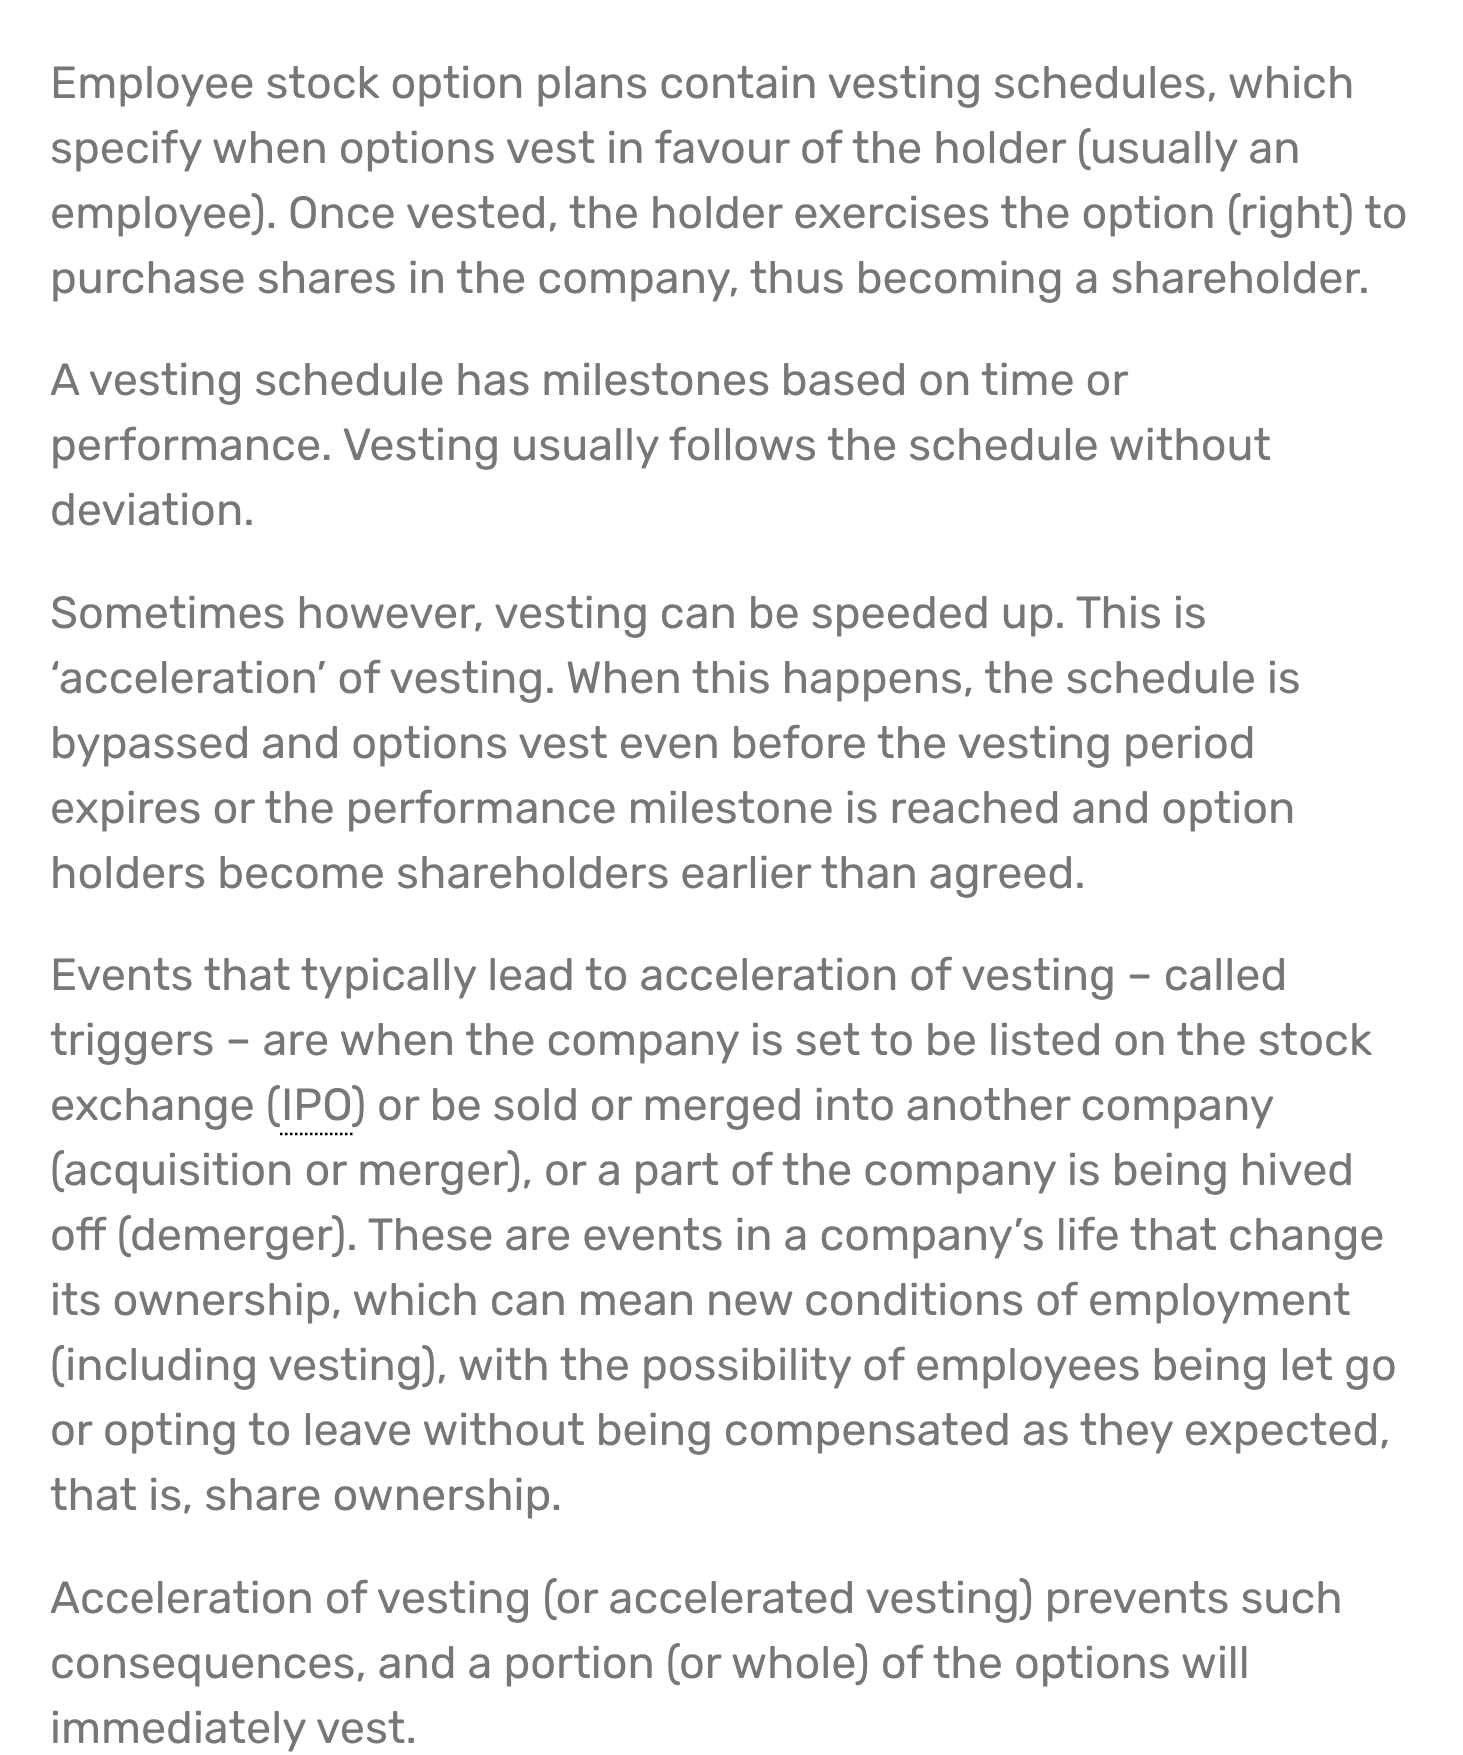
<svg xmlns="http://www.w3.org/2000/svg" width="1463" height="1755">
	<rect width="100%" height="100%" fill="#FFFFFF" />
	<g font-family="Rubik" font-size="45" fill="#777777">
		<text x="50" y="98">Employee stock option plans contain vesting schedules, which</text>
		<text x="50" y="163">specify when options vest in favour of the holder (usually an</text>
		<text x="50" y="228">employee). Once vested, the holder exercises the option (right) to</text>
		<text x="50" y="293">purchase shares in the company, thus becoming a shareholder.</text>
		<text x="50" y="395" word-spacing="-0.25">A vesting schedule has milestones based on time or</text>
		<text x="50" y="460">performance. Vesting usually follows the schedule without</text>
		<text x="50" y="525">deviation.</text>
		<text x="50" y="628">Sometimes however, vesting can be speeded up. This is</text>
		<text x="50" y="693">‘acceleration’ of vesting. When this happens, the schedule is</text>
		<text x="50" y="758">bypassed and options vest even before the vesting period</text>
		<text x="50" y="823">expires or the performance milestone is reached and option</text>
		<text x="50" y="888">holders become shareholders earlier than agreed.</text>
		<text x="50" y="990">Events that typically lead to acceleration of vesting – called</text>
		<text x="50" y="1055">triggers – are when the company is set to be listed on the stock</text>
		<text x="50" y="1120">exchange (IPO</text>
		<text x="351" y="1120" word-spacing="-0.25">) or be sold or merged into another company</text>
	</g>
	<path d="M280 1134H352.5" fill="none" stroke="#000000" stroke-width="2.5" stroke-dasharray="2.5 2.5" />
	<g font-family="Rubik" font-size="45" fill="#777777">
		<text x="50" y="1185">(acquisition or merger), or a part of the company is being hived</text>
		<text x="50" y="1250">off (demerger). These are events in a company’s life that change</text>
		<text x="50" y="1315">its ownership, which can mean new conditions of employment</text>
		<text x="50" y="1380">(including vesting), with the possibility of employees being let go</text>
		<text x="50" y="1445">or opting to leave without being compensated as they expected,</text>
		<text x="50" y="1510">that is, share ownership.</text>
		<text x="50" y="1613">Acceleration of vesting (or accelerated vesting) prevents such</text>
		<text x="50" y="1678">consequences, and a portion (or whole) of the options will</text>
		<text x="50" y="1743">immediately vest.</text>
	</g>
</svg>
